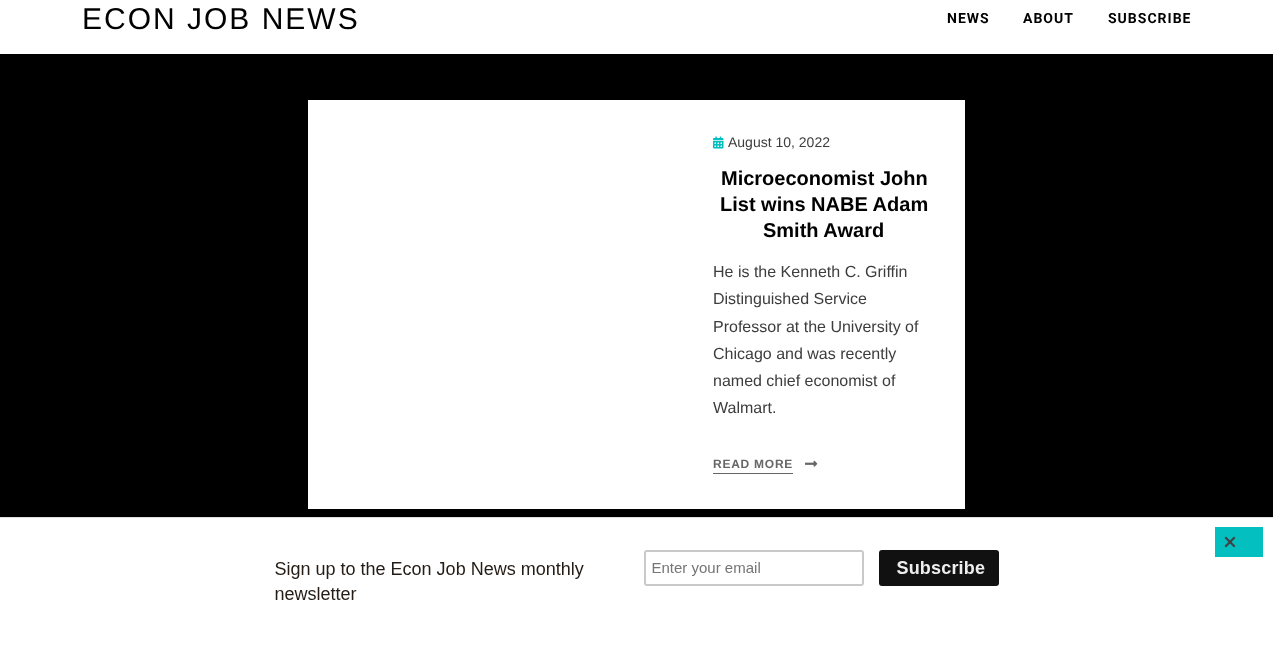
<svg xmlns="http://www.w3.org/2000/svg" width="1273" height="668">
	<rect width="100%" height="100%" fill="#000000" />
	<rect x="0" y="0" width="1273" height="54" fill="#FFFFFF" />
	<text x="82" y="29" font-family="Liberation Sans" font-size="30" letter-spacing="2" fill="#000000">ECON JOB NEWS</text>
	<g font-family="Roboto" font-size="14" font-weight="700" letter-spacing="1" fill="#000000">
		<text x="947" y="23">NEWS</text>
		<text x="1023" y="23">ABOUT</text>
		<text x="1108" y="23">SUBSCRIBE</text>
	</g>
	<rect x="308" y="100" width="657" height="409" fill="#FFFFFF" />
	<image x="713" y="136" width="11" height="13" href="assets/img1.png" />
	<text x="728" y="147" font-family="Liberation Sans" font-size="14" fill="#3D3D3D">August 10, 2022</text>
	<g font-family="Liberation Sans" font-size="20" font-weight="700" fill="#000000">
		<text x="721" y="185">Microeconomist John</text>
		<text x="720" y="211">List wins NABE Adam</text>
		<text x="763" y="237">Smith Award</text>
	</g>
	<g font-family="Liberation Sans" font-size="16" fill="#3D3D3D">
		<text x="713" y="277">He is the Kenneth C. Griffin</text>
		<text x="713" y="304">Distinguished Service</text>
		<text x="713" y="332">Professor at the University of</text>
		<text x="713" y="359">Chicago and was recently</text>
		<text x="713" y="386">named chief economist of</text>
		<text x="713" y="413">Walmart.</text>
	</g>
	<text x="713" y="468" font-family="Liberation Sans" font-size="12" font-weight="700" letter-spacing="0.75" fill="#666666">READ MORE</text>
	<image x="805" y="460" width="13" height="7" href="assets/img2.png" />
	<rect x="713" y="473" width="80" height="1" fill="#666666" />
	<rect x="0" y="518" width="1273" height="150" fill="#FFFFFF" />
	<rect x="0" y="517" width="1273" height="1" fill="#E0E0E0" />
	<image x="275" y="550" width="724" height="50" href="assets/img3.png" />
	<rect x="1215" y="527" width="48" height="30" fill="#04BFBF" />
	<path d="M1234 536.5L1235.5 538L1226 547.5L1224.5 546Z" fill="#414141" />
	<path d="M1224.5 538L1226 536.5L1235.5 546L1234 547.5Z" fill="#414141" />
</svg>
